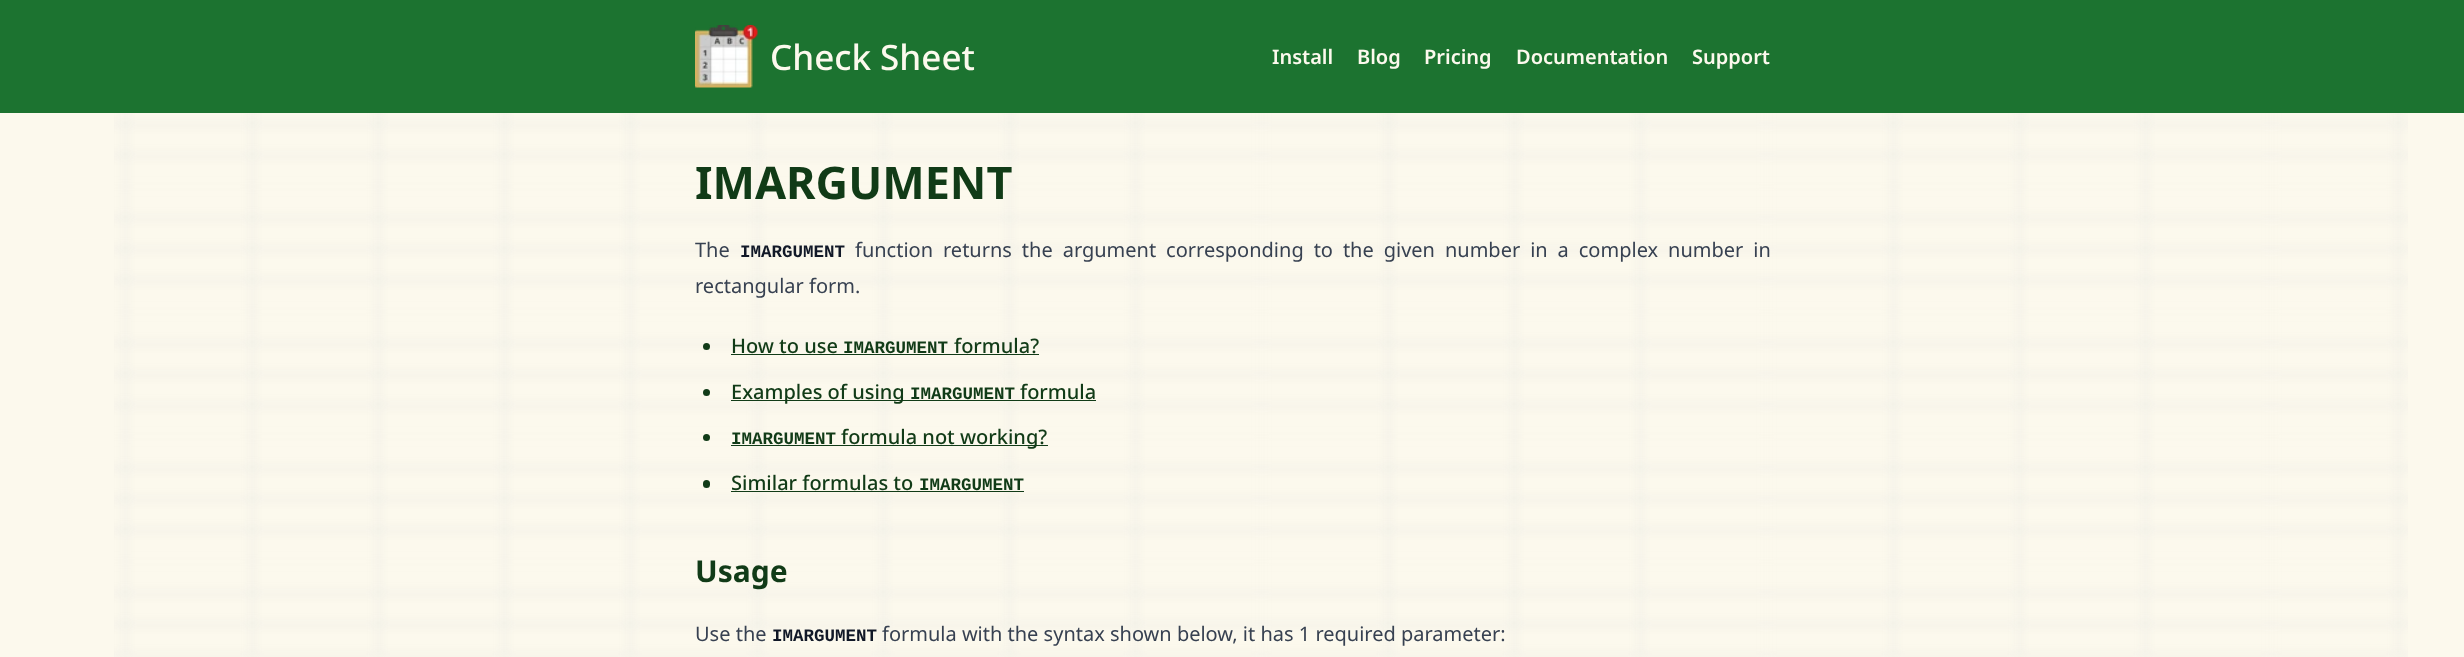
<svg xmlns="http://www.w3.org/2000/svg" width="2464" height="657">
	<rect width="100%" height="100%" fill="#FCF9ED" />
	<rect x="0" y="0" width="2464" height="113" fill="#1C7330" />
	<image x="695" y="25" width="63" height="63" href="assets/img1.png" />
	<text x="770" y="70" font-family="Noto Sans" font-size="35" font-weight="500" fill="#FCF9ED">Check Sheet</text>
	<g font-family="Noto Sans" font-size="20" font-weight="600" fill="#FCF9ED">
		<text x="1272" y="64">Install</text>
		<text x="1357" y="64">Blog</text>
		<text x="1424" y="64">Pricing</text>
		<text x="1516" y="64">Documentation</text>
		<text x="1692" y="64">Support</text>
	</g>
	<image x="114" y="113" width="2294" height="544" href="assets/img2.png" />
	<text x="695" y="199" font-family="Noto Sans" font-size="45" font-weight="700" fill="#113B17">IMARGUMENT</text>
	<text x="695" y="257" font-family="Noto Sans" font-size="20" fill="#374151">The</text>
	<text x="740" y="257" font-family="Liberation Mono" font-size="17.5" font-weight="700" fill="#111827">IMARGUMENT</text>
	<g font-family="Noto Sans" font-size="20" fill="#374151">
		<text x="855" y="257" word-spacing="4.75">function returns the argument corresponding to the given number in a complex number in</text>
		<text x="695" y="293">rectangular form.</text>
	</g>
	<circle cx="706.5" cy="346.5" r="3.5" fill="#113B17" />
	<text x="731" y="353" font-family="Noto Sans" font-size="20" font-weight="500" fill="#113B17">How to use</text>
	<text x="843" y="353" font-family="Liberation Mono" font-size="17.5" font-weight="700" fill="#113B17">IMARGUMENT</text>
	<rect x="731" y="354" width="308" height="1" fill="#113B17" />
	<text x="954" y="353" font-family="Noto Sans" font-size="20" font-weight="500" fill="#113B17">formula?</text>
	<circle cx="706.5" cy="392.5" r="3.5" fill="#113B17" />
	<rect x="731" y="400" width="365" height="1" fill="#113B17" />
	<text x="731" y="399" font-family="Noto Sans" font-size="20" font-weight="500" fill="#113B17">Examples of using</text>
	<text x="910" y="399" font-family="Liberation Mono" font-size="17.5" font-weight="700" fill="#113B17">IMARGUMENT</text>
	<text x="1020" y="399" font-family="Noto Sans" font-size="20" font-weight="500" fill="#113B17">formula</text>
	<circle cx="706.5" cy="437.5" r="3.5" fill="#113B17" />
	<text x="731" y="444" font-family="Liberation Mono" font-size="17.5" font-weight="700" fill="#113B17">IMARGUMENT</text>
	<rect x="731" y="445" width="317" height="1" fill="#113B17" />
	<text x="841" y="444" font-family="Noto Sans" font-size="20" font-weight="500" fill="#113B17">formula not working?</text>
	<rect x="703" y="480" width="7" height="8" rx="3.5" fill="#113B17" />
	<text x="731" y="490" font-family="Noto Sans" font-size="20" font-weight="500" fill="#113B17">Similar formulas to</text>
	<text x="919" y="490" font-family="Liberation Mono" font-size="17.5" font-weight="700" fill="#113B17">IMARGUMENT</text>
	<rect x="731" y="491" width="293" height="1" fill="#113B17" />
	<text x="695" y="582" font-family="Noto Sans" font-size="30" font-weight="700" fill="#113B17">Usage</text>
	<text x="695" y="641" font-family="Noto Sans" font-size="20" fill="#374151">Use the</text>
	<text x="772" y="641" font-family="Liberation Mono" font-size="17.5" font-weight="700" fill="#111827">IMARGUMENT</text>
	<text x="882" y="641" font-family="Noto Sans" font-size="20" fill="#374151">formula with the syntax shown below, it has 1 required parameter:</text>
</svg>
